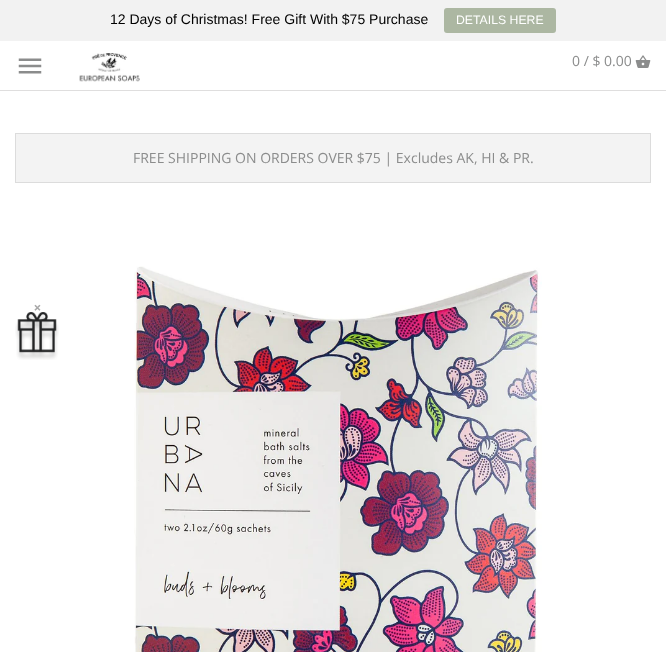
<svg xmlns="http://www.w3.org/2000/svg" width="666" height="652">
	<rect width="100%" height="100%" fill="#FFFFFF" />
	<rect x="0" y="0" width="666" height="41" fill="#F2F2F2" />
	<text x="110" y="24" font-family="Liberation Sans" font-size="14" fill="#000000">12 Days of Christmas! Free Gift With $75 Purchase</text>
	<rect x="444" y="8" width="112" height="25" rx="3" fill="#ACB7A2" />
	<text x="456" y="24" font-family="Liberation Sans" font-size="12.25" fill="#FFFFFF">DETAILS HERE</text>
	<rect x="0" y="90" width="666" height="1" fill="#DFDEDE" />
	<image x="18" y="58" width="24" height="16" href="assets/img1.png" />
	<image x="79" y="53" width="61" height="29" href="assets/img2.png" />
	<text x="572" y="66" font-family="Open Sans" font-size="14" fill="#8B8C8C">0 / $ 0.00</text>
	<image x="635" y="55" width="16" height="13" href="assets/img3.png" />
	<rect x="15.5" y="133.5" width="635" height="49" fill="#F3F3F3" stroke="#DCDCDC" />
	<text x="133" y="163" font-family="Open Sans" font-size="14" fill="#8B8C8C">FREE SHIPPING ON ORDERS OVER $75 | Excludes AK, HI &amp; PR.</text>
	<image x="134" y="266" width="408" height="386" href="assets/img4.png" />
	<image x="15" y="312" width="44" height="48" href="assets/img5.png" />
	<text x="34" y="312" font-family="Roboto" font-size="13" font-weight="700" fill="#A8A8A8">×</text>
</svg>
